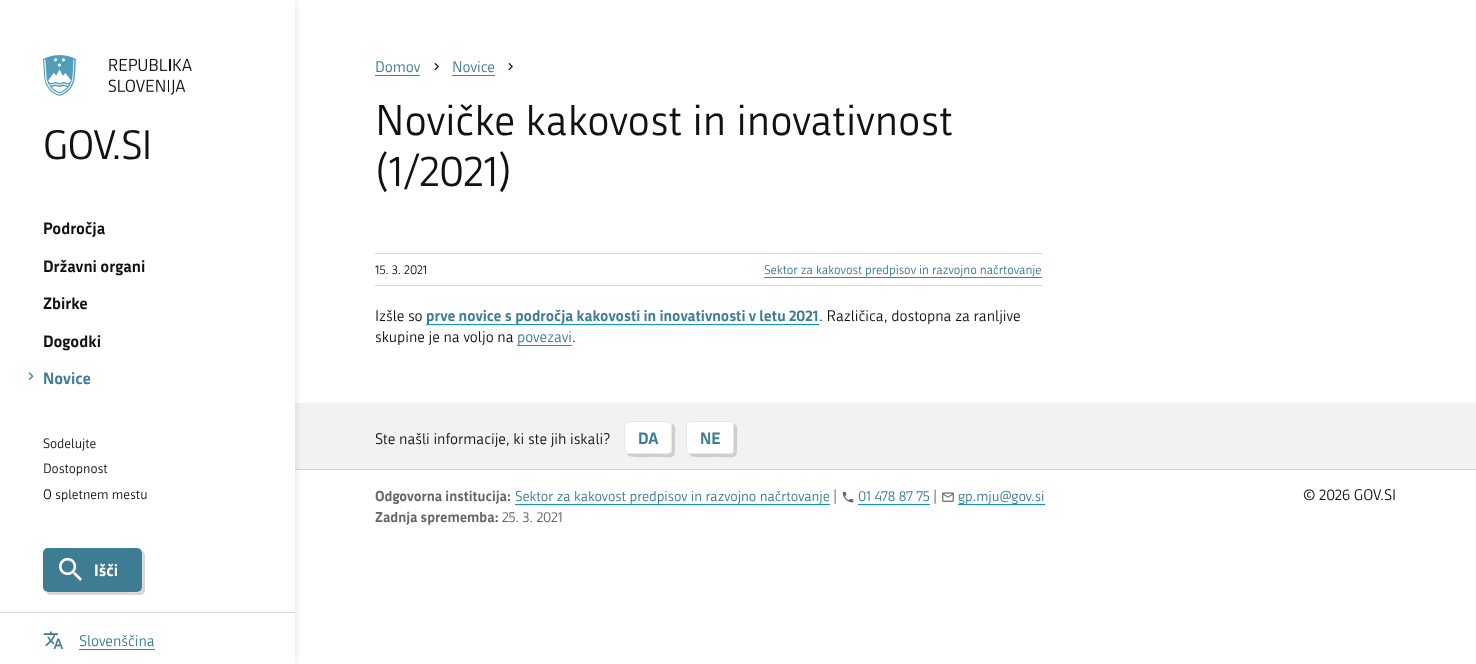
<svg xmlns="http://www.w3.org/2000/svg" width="1476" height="664">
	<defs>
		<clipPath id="clip1"><rect x="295" y="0" width="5" height="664" /></clipPath>
	</defs>
	<rect width="100%" height="100%" fill="#FFFFFF" />
	<rect x="295" y="403" width="1181" height="66" fill="#F3F2F0" />
	<rect x="295" y="469" width="1181" height="1" fill="#D7D7D7" />
	<g clip-path="url(#clip1)">
		<rect x="0" y="0" width="295" height="664" fill="#000000" fill-opacity="0.12" filter="blur(5px)" />
	</g>
	<image x="43" y="55" width="149" height="41" href="assets/img1.png" />
	<text x="43" y="159" font-family="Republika" font-size="40" letter-spacing="-0.75" fill="#111111">GOV.SI</text>
	<g font-family="Republika" font-size="16" font-weight="700" fill="#111111">
		<text x="43" y="234">Področja</text>
		<text x="43" y="272">Državni organi</text>
		<text x="43" y="309">Zbirke</text>
		<text x="43" y="347">Dogodki</text>
	</g>
	<image x="28" y="372" width="6" height="9" href="assets/img2.png" />
	<text x="43" y="384" font-family="Republika" font-size="16" font-weight="700" fill="#3E7C94">Novice</text>
	<g font-family="Republika" font-size="13.25" fill="#111111">
		<text x="43" y="448">Sodelujte</text>
		<text x="43" y="473">Dostopnost</text>
		<text x="43" y="499">O spletnem mestu</text>
	</g>
	<path d="M46 592C47 594 49 595 51 595H140C143 595 145 593 145 590V556C145 554 144 552 142 551V576C142 595 143 592 122 592Z" fill="#D9D9D9" />
	<rect x="43" y="548" width="99" height="44" rx="5" fill="#3E7C94" />
	<image x="59" y="557" width="23" height="24" href="assets/img3.png" />
	<text x="94" y="576" font-family="Republika" font-size="16" font-weight="700" fill="#FFFFFF">Išči</text>
	<rect x="0" y="612" width="295" height="1" fill="#D7D7D7" />
	<image x="43" y="631" width="21" height="18" href="assets/img4.png" />
	<text x="79" y="646" font-family="Republika" font-size="15" fill="#3E7C94">Slovenščina</text>
	<rect x="79" y="649" width="76" height="1" fill="#0D96CA" />
	<text x="375" y="72" font-family="Republika" font-size="15" fill="#3E7C94">Domov</text>
	<rect x="375" y="75" width="45" height="1" fill="#0D96CA" />
	<image x="434" y="62" width="5" height="9" href="assets/img5.png" />
	<text x="452" y="72" font-family="Republika" font-size="15" fill="#3E7C94">Novice</text>
	<rect x="452" y="75" width="43" height="1" fill="#0D96CA" />
	<image x="508" y="62" width="5" height="9" href="assets/img5.png" />
	<g font-family="Republika" font-size="42" fill="#111111">
		<text x="375" y="135">Novičke kakovost in inovativnost</text>
		<text x="375" y="186">(1/2021)</text>
	</g>
	<rect x="375" y="253" width="667" height="1" fill="#D7D7D7" />
	<rect x="375" y="285" width="667" height="1" fill="#D7D7D7" />
	<text x="375" y="274" font-family="Republika" font-size="12.35" fill="#111111">15. 3. 2021</text>
	<text x="764" y="274" font-family="Republika" font-size="12.35" fill="#3E7C94">Sektor za kakovost predpisov in razvojno načrtovanje</text>
	<rect x="764" y="277" width="278" height="1" fill="#0D96CA" />
	<text x="375" y="321" font-family="Republika" font-size="15" fill="#111111">Izšle so</text>
	<rect x="426" y="324" width="393" height="1" fill="#0D96CA" />
	<text x="426" y="321" font-family="Republika" font-size="15" font-weight="700" fill="#3E7C94">prve novice s področja kakovosti in inovativnosti v letu 2021</text>
	<g font-family="Republika" font-size="15" fill="#111111">
		<text x="819" y="321">. Različica, dostopna za ranljive</text>
		<text x="375" y="342">skupine je na voljo na</text>
	</g>
	<text x="517" y="342" font-family="Republika" font-size="15" fill="#3E7C94">povezavi</text>
	<rect x="517" y="345" width="55" height="1" fill="#0D96CA" />
	<g font-family="Republika" font-size="15" fill="#111111">
		<text x="572" y="342">.</text>
		<text x="375" y="444">Ste našli informacije, ki ste jih iskali?</text>
	</g>
	<path d="M627 454L629 456C632 458 647 457 651 457C678 457 675 462 675 436C675 433 677 425 672 424V442C672 457 672 454 655 454Z" fill="#CFCECC" />
	<rect x="624" y="421" width="48" height="33" rx="4" fill="#FFFFFF" />
	<rect x="624.5" y="421.5" width="47" height="32" rx="3.5" fill="none" stroke="#000000" stroke-opacity="0.1" />
	<text x="638" y="444" font-family="Republika" font-size="16" font-weight="700" fill="#3E7C94">DA</text>
	<path d="M689 454L691 456C694 458 709 457 713 457C740 457 737 462 737 436C737 433 739 425 734 424V442C734 457 734 454 717 454Z" fill="#CFCECC" />
	<rect x="686" y="421" width="48" height="33" rx="4" fill="#FFFFFF" />
	<rect x="686.5" y="421.5" width="47" height="32" rx="3.5" fill="none" stroke="#000000" stroke-opacity="0.1" />
	<text x="700" y="444" font-family="Republika" font-size="16" font-weight="700" fill="#3E7C94">NE</text>
	<text x="375" y="501" font-family="Republika" font-size="14" font-weight="700" fill="#65656A">Odgovorna institucija:</text>
	<text x="515" y="501" font-family="Republika" font-size="14" fill="#3E7C94">Sektor za kakovost predpisov in razvojno načrtovanje</text>
	<rect x="515" y="504" width="315" height="1" fill="#0D96CA" />
	<text x="833" y="501" font-family="Republika" font-size="14" fill="#65656A">|</text>
	<image x="842" y="491" width="12" height="12" href="assets/img6.png" />
	<text x="858" y="501" font-family="Republika" font-size="14" fill="#3E7C94">01 478 87 75</text>
	<rect x="858" y="504" width="72" height="1" fill="#0D96CA" />
	<text x="933" y="501" font-family="Republika" font-size="14" fill="#65656A">|</text>
	<image x="942" y="492" width="12" height="10" href="assets/img7.png" />
	<text x="958" y="501" font-family="Republika" font-size="14" fill="#3E7C94">gp.mju@gov.si</text>
	<rect x="958" y="504" width="87" height="1" fill="#0D96CA" />
	<text x="375" y="522" font-family="Republika" font-size="14" font-weight="700" fill="#65656A">Zadnja sprememba:</text>
	<text x="502" y="522" font-family="Republika" font-size="14" fill="#65656A">25. 3. 2021</text>
	<text x="1303" y="500" font-family="Republika" font-size="15" fill="#111111">© 2026 GOV.SI</text>
</svg>
